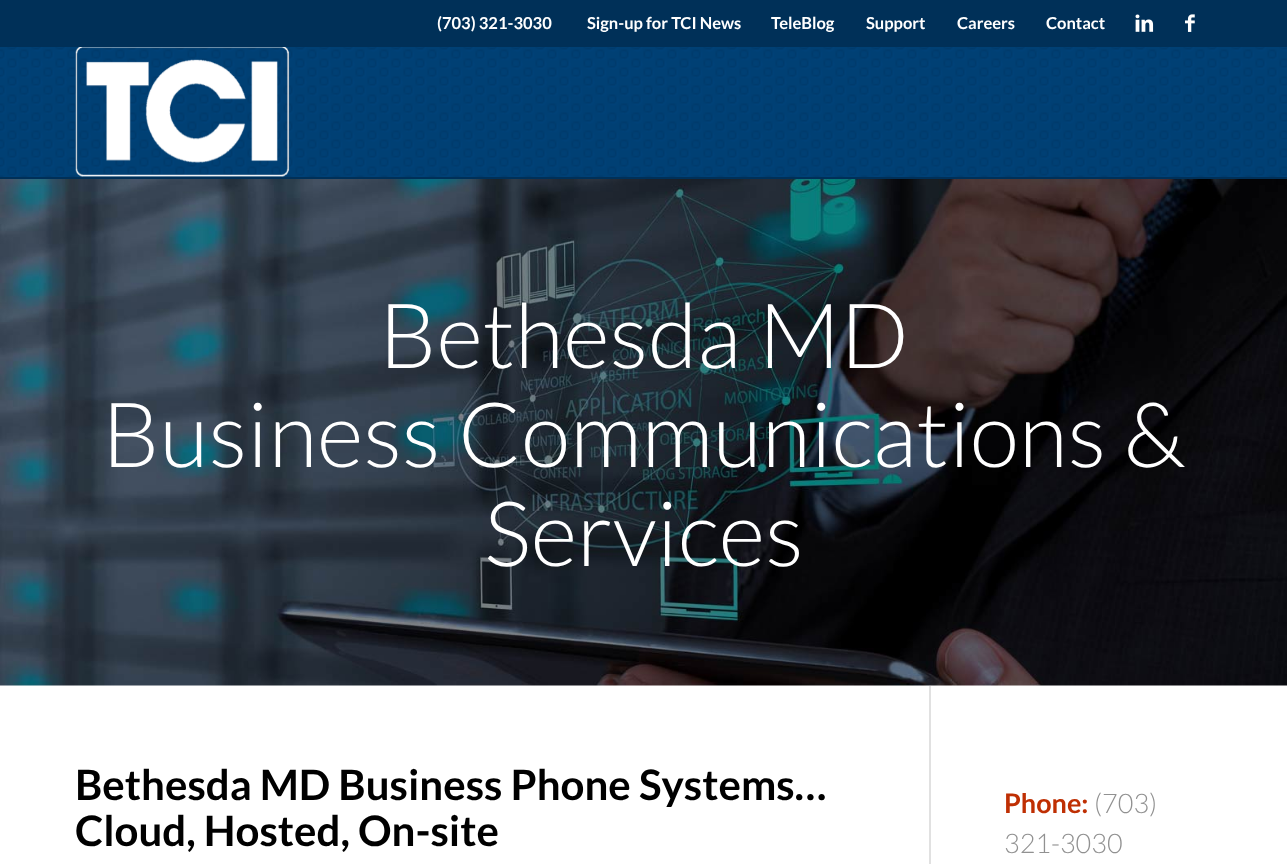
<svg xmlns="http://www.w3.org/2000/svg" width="1287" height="864">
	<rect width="100%" height="100%" fill="#FFFFFF" />
	<rect x="0" y="0" width="1287" height="47" fill="#003058" />
	<g font-family="Lato" font-size="16.5" font-weight="700" fill="#FFFFFF">
		<text x="437" y="29">(703) 321-3030</text>
		<text x="587" y="29">Sign-up for TCI News</text>
		<text x="771" y="29">TeleBlog</text>
		<text x="866" y="29">Support</text>
		<text x="957" y="29">Careers</text>
		<text x="1046" y="29">Contact</text>
	</g>
	<image x="1135" y="14" width="19" height="18" href="assets/img1.png" />
	<image x="1185" y="14" width="10" height="18" href="assets/img2.png" />
	<image x="0" y="47" width="1287" height="130" href="assets/img3.png" />
	<rect x="0" y="177" width="1287" height="2" fill="#003058" />
	<image x="75" y="47" width="215" height="130" href="assets/img4.png" />
	<image x="0" y="179" width="1287" height="507" href="assets/img5.png" />
	<g font-family="Lato" font-size="90" font-weight="300" fill="#FFFFFF">
		<text x="379" y="368">Bethesda MD</text>
		<text x="102" y="467">Business Communications &amp;</text>
		<text x="484" y="566">Services</text>
	</g>
	<rect x="929" y="686" width="2" height="178" fill="#E1E1E1" />
	<g font-family="Lato" font-size="42" font-weight="700" fill="#000000">
		<text x="75" y="800">Bethesda MD Business Phone Systems…</text>
		<text x="75" y="846">Cloud, Hosted, On-site</text>
	</g>
	<text x="1004" y="813" font-family="Lato" font-size="27" font-weight="700" fill="#BF2F03">Phone:</text>
	<g font-family="Lato" font-size="27" font-weight="300" fill="#919191">
		<text x="1094" y="813">(703)</text>
		<text x="1004" y="853">321-3030</text>
	</g>
</svg>
